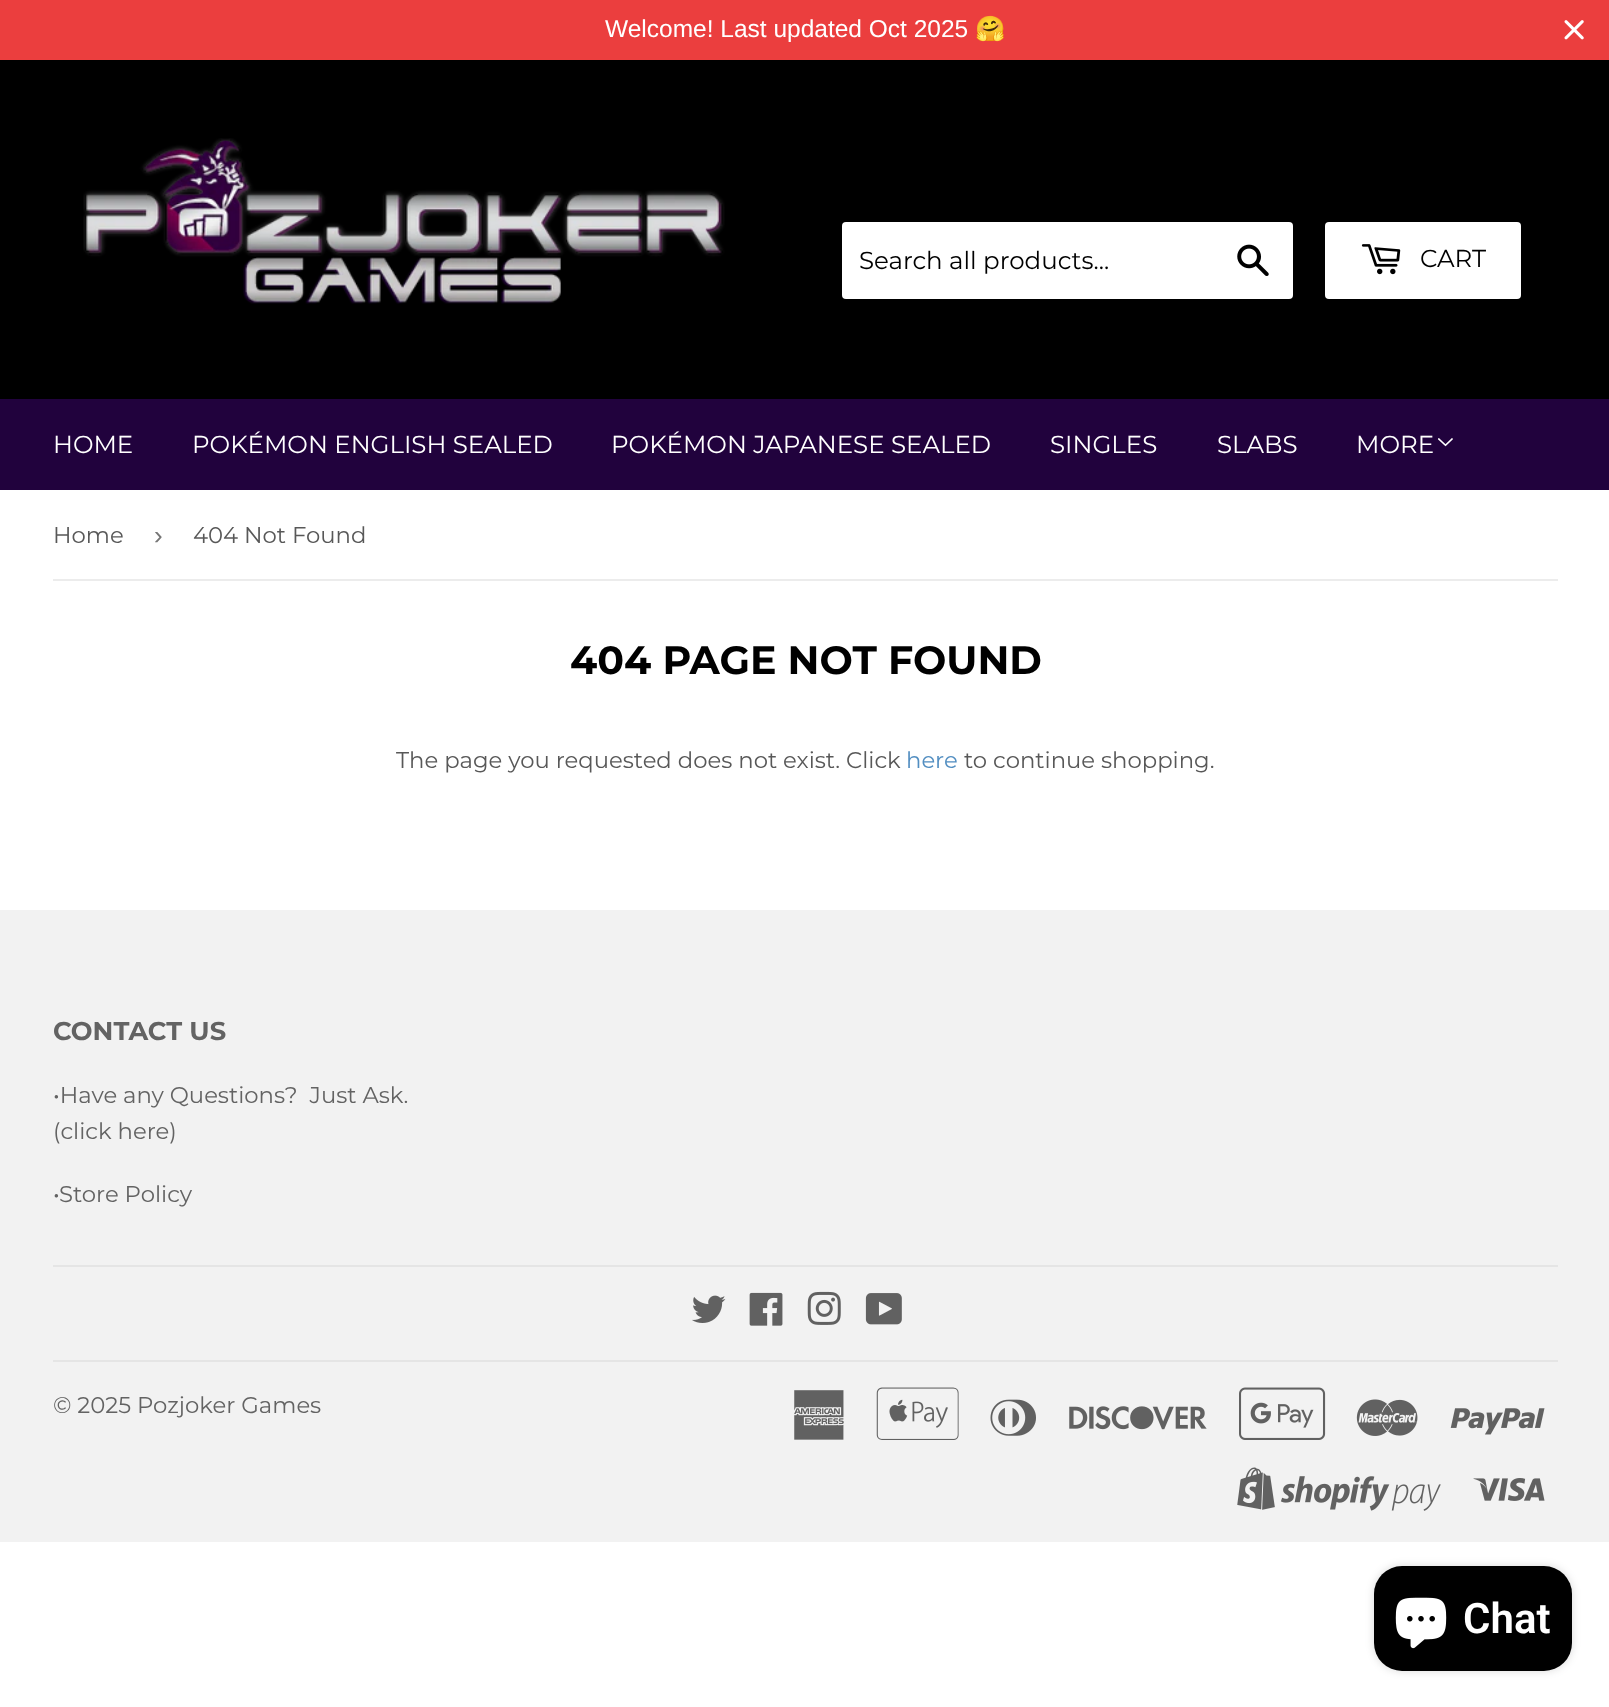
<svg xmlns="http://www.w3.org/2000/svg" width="1609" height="1707">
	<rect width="100%" height="100%" fill="#FFFFFF" />
	<rect x="0" y="0" width="1609" height="60" fill="#EB3E3E" />
	<text x="605" y="37" font-family="Liberation Sans" font-size="24.5" fill="#FFFFFF">Welcome! Last updated Oct 2025</text>
	<text x="975" y="37" font-family="Noto Color Emoji" font-size="24.5" fill="#FFFFFF">🤗</text>
	<image x="1564" y="20" width="20" height="20" href="assets/img1.png" />
	<rect x="0" y="60" width="1609" height="339" fill="#000000" />
	<image x="83" y="138" width="642" height="166" href="assets/img2.png" />
	<rect x="842" y="222" width="451" height="77" rx="4" fill="#FFFFFF" />
	<text x="859" y="269" font-family="Montserrat" font-size="24.5" fill="#000000">Search all products...</text>
	<image x="1237" y="244" width="32" height="32" href="assets/img3.png" />
	<rect x="1325" y="222" width="196" height="77" rx="4" fill="#FFFFFF" />
	<image x="1361" y="244" width="40" height="31" href="assets/img4.png" />
	<text x="1420" y="267" font-family="Montserrat" font-size="24.5" fill="#000000">CART</text>
	<rect x="0" y="399" width="1609" height="91" fill="#21023D" />
	<g font-family="Montserrat" font-size="24.5" fill="#FFFFFF">
		<text x="53" y="453">HOME</text>
		<text x="192" y="453">POKÉMON ENGLISH SEALED</text>
		<text x="611" y="453">POKÉMON JAPANESE SEALED</text>
		<text x="1050" y="453">SINGLES</text>
		<text x="1217" y="453">SLABS</text>
		<text x="1356" y="453">MORE</text>
	</g>
	<image x="1438" y="438" width="15" height="9" href="assets/img5.png" />
	<rect x="53" y="579" width="1505" height="2" fill="#ECECEC" />
	<text x="53" y="543" font-family="Montserrat" font-size="22.75" fill="#585858">Home</text>
	<text x="154" y="544" font-family="Liberation Sans" font-size="26" fill="#767676">›</text>
	<text x="193" y="543" font-family="Montserrat" font-size="22.75" fill="#585858">404 Not Found</text>
	<text x="570" y="674" font-family="Montserrat" font-size="39.5" font-weight="700" fill="#000000">404 PAGE NOT FOUND</text>
	<text x="396" y="768" font-family="Montserrat" font-size="22.75" fill="#585858">The page you requested does not exist. Click</text>
	<text x="906" y="768" font-family="Montserrat" font-size="22.75" fill="#528EC1">here</text>
	<text x="964" y="768" font-family="Montserrat" font-size="22.75" fill="#585858">to continue shopping.</text>
	<rect x="0" y="910" width="1609" height="632" fill="#F2F2F2" />
	<text x="53" y="1040" font-family="Montserrat" font-size="25.75" font-weight="700" fill="#636363">CONTACT US</text>
	<g font-family="Montserrat" font-size="22.75" fill="#636363">
		<text x="53" y="1103" xml:space="preserve">•Have any Questions?  Just Ask.</text>
		<text x="53" y="1139">(click here)</text>
		<text x="53" y="1202">•</text>
		<text x="59" y="1202">Store Policy</text>
	</g>
	<rect x="53" y="1265" width="1505" height="2" fill="#E5E5E5" />
	<image x="692" y="1295" width="34" height="28" href="assets/img6.png" />
	<image x="749" y="1292" width="34" height="34" href="assets/img7.png" />
	<image x="807" y="1291" width="34" height="34" href="assets/img8.png" />
	<image x="865" y="1293" width="37" height="32" href="assets/img9.png" />
	<rect x="53" y="1360" width="1505" height="2" fill="#E5E5E5" />
	<text x="53" y="1413" font-family="Montserrat" font-size="22.75" fill="#636363">© 2025 Pozjoker Games</text>
	<image x="794" y="1390" width="50" height="50" href="assets/img10.png" />
	<image x="876" y="1387" width="83" height="53" href="assets/img11.png" />
	<image x="990" y="1399" width="46" height="37" href="assets/img12.png" />
	<image x="1069" y="1406" width="138" height="24" href="assets/img13.png" />
	<image x="1239" y="1387" width="87" height="53" href="assets/img14.png" />
	<image x="1356" y="1399" width="62" height="37" href="assets/img15.png" />
	<image x="1450" y="1408" width="95" height="27" href="assets/img16.png" />
	<image x="1237" y="1467" width="204" height="44" href="assets/img17.png" />
	<image x="1473" y="1478" width="72" height="23" href="assets/img18.png" />
	<rect x="1374" y="1566" width="198" height="105" rx="28" fill="#000000" fill-opacity="0.15" filter="blur(4.5px)" />
	<rect x="1374" y="1566" width="198" height="105" rx="28" fill="#000000" />
	<image x="1395" y="1597" width="52" height="52" href="assets/img19.png" />
	<text x="1463" y="1633" font-family="Roboto" font-size="42" font-weight="600" fill="#FFFFFF">Chat</text>
</svg>
